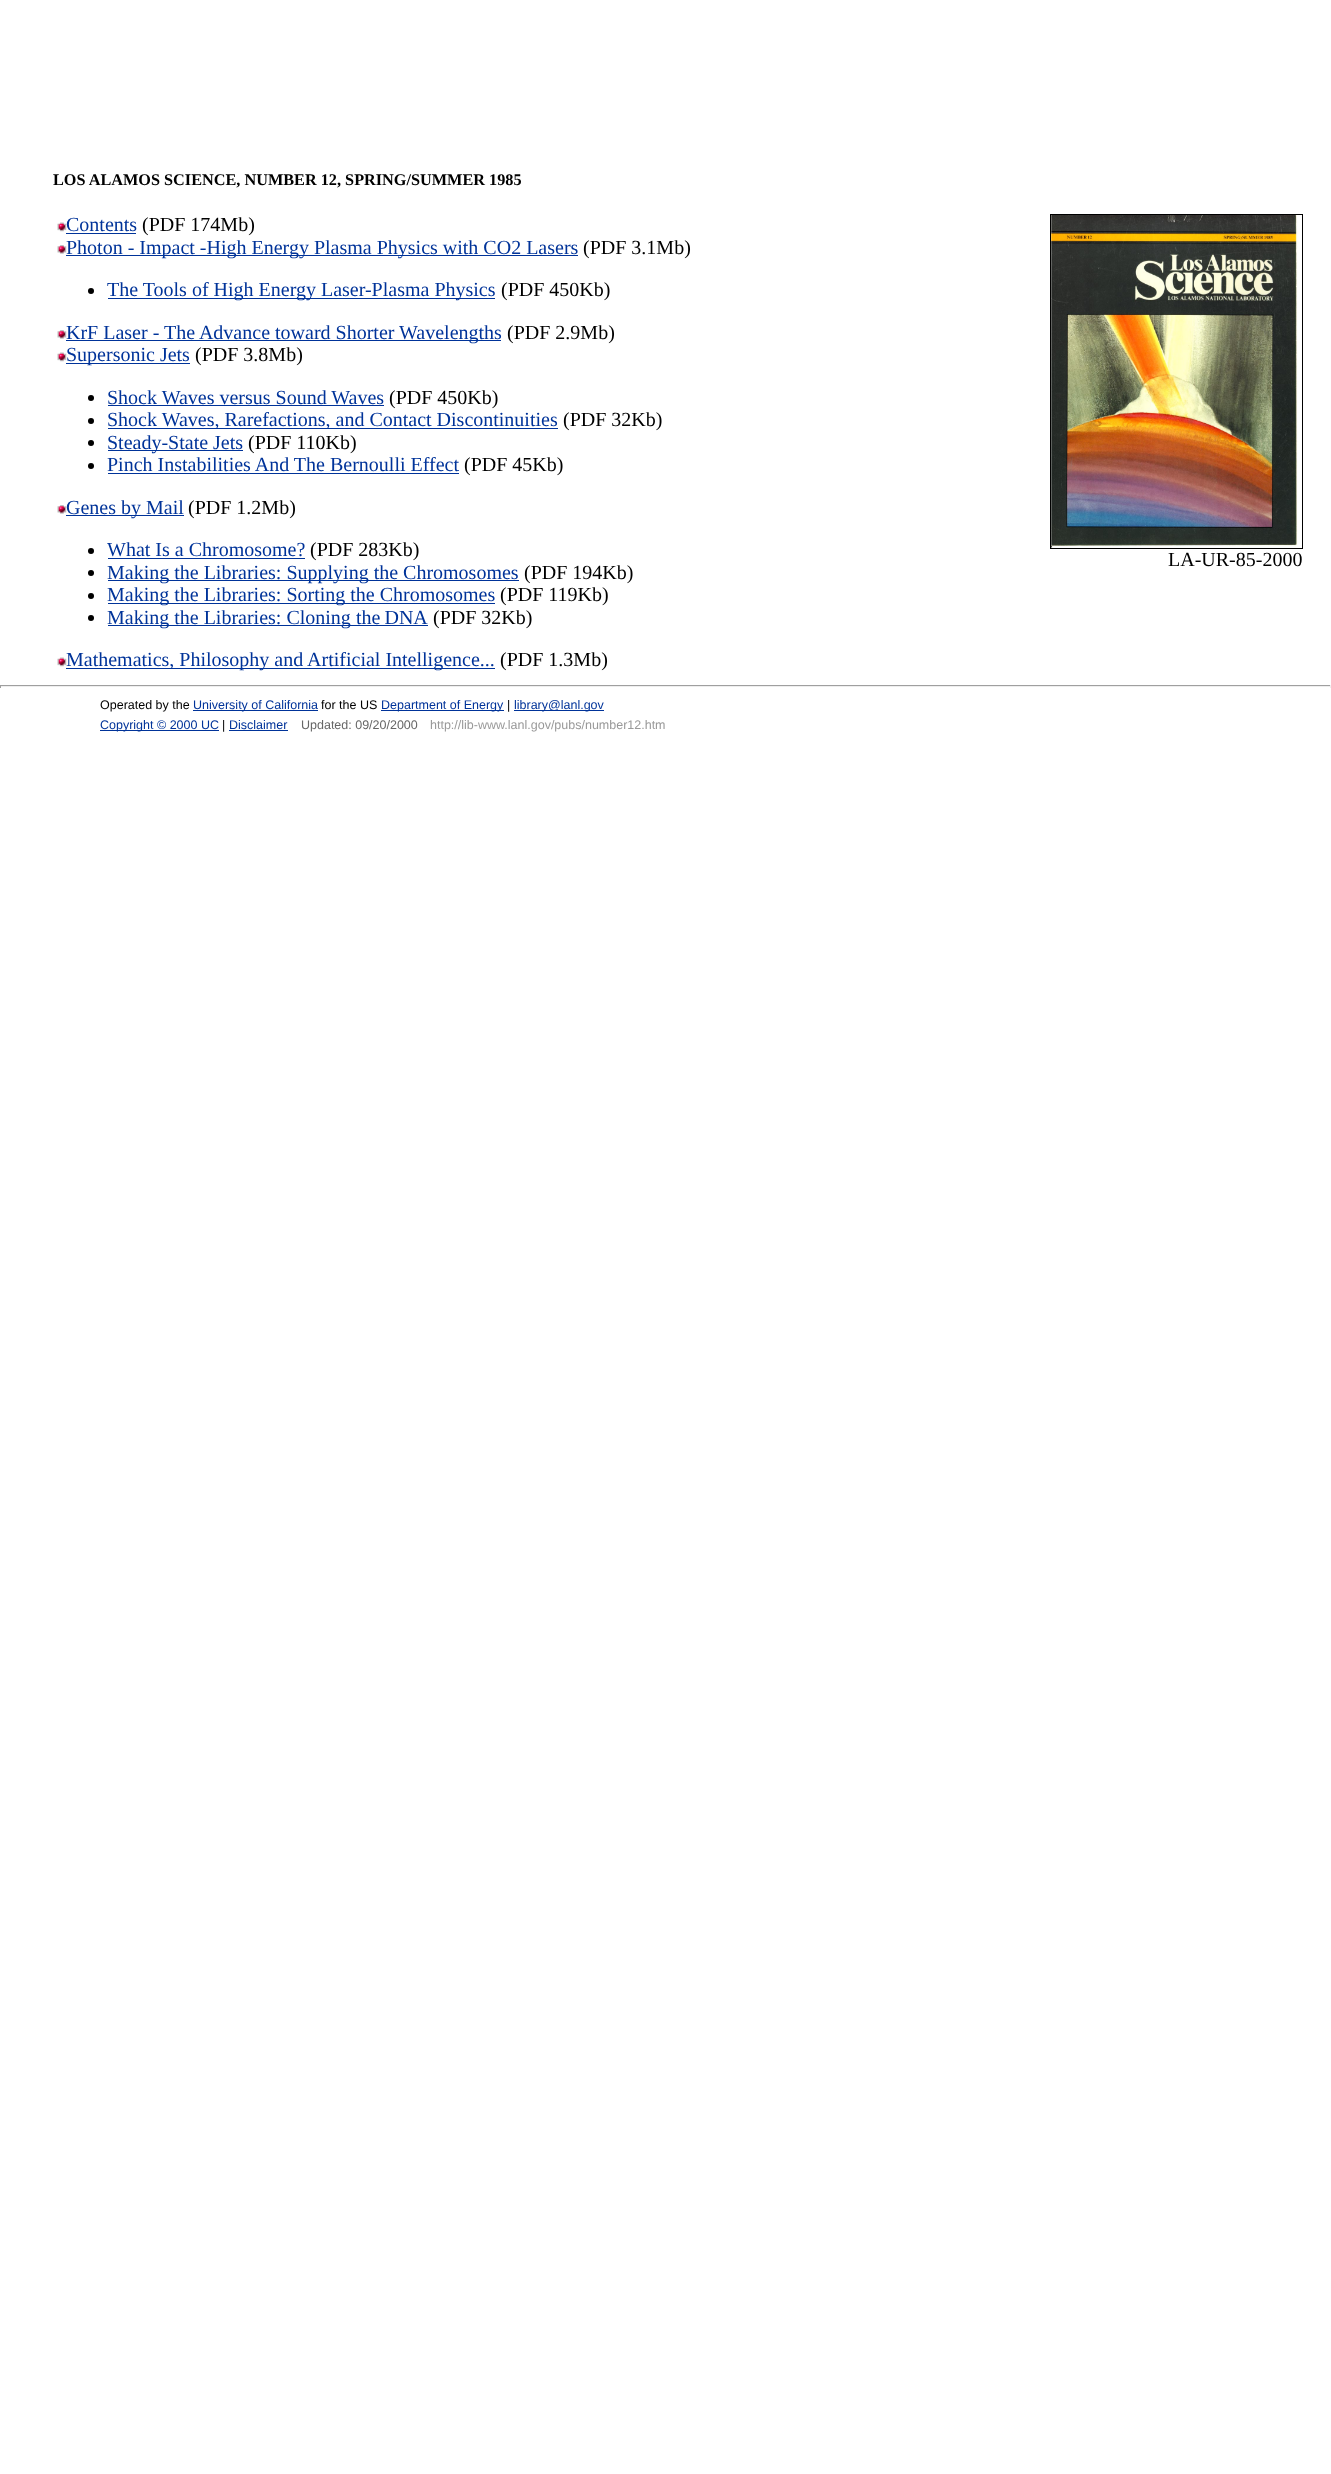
<svg xmlns="http://www.w3.org/2000/svg" width="1331" height="2474">
	<rect width="100%" height="100%" fill="#FFFFFF" />
	<text x="53" y="185" font-family="Liberation Serif" font-size="16.25" font-weight="700" fill="#000000">LOS ALAMOS SCIENCE, NUMBER 12, SPRING/SUMMER 1985</text>
	<image x="57" y="222" width="10" height="10" href="assets/img1.png" />
	<text x="66" y="231" font-family="Liberation Serif" font-size="20" fill="#003399">Contents</text>
	<rect x="66" y="233" width="70" height="1" fill="#003399" />
	<text x="142" y="231" font-family="Liberation Serif" font-size="20" fill="#000000">(PDF 174Mb)</text>
	<image x="57" y="245" width="10" height="9" href="assets/img2.png" />
	<rect x="66" y="255" width="512" height="1" fill="#003399" />
	<text x="66" y="254" font-family="Liberation Serif" font-size="20" fill="#003399">Photon - Impact -High Energy Plasma Physics with CO2 Lasers</text>
	<text x="583" y="254" font-family="Liberation Serif" font-size="20" fill="#000000">(PDF 3.1Mb)</text>
	<circle cx="91" cy="291" r="3" fill="#000000" />
	<rect x="108" y="298" width="387" height="1" fill="#003399" />
	<text x="107" y="296" font-family="Liberation Serif" font-size="20" fill="#003399">The Tools of High Energy Laser-Plasma Physics</text>
	<text x="501" y="296" font-family="Liberation Serif" font-size="20" fill="#000000">(PDF 450Kb)</text>
	<image x="57" y="330" width="10" height="9" href="assets/img2.png" />
	<rect x="66" y="340" width="435" height="1" fill="#003399" />
	<text x="66" y="339" font-family="Liberation Serif" font-size="20" fill="#003399">KrF Laser - The Advance toward Shorter Wavelengths</text>
	<text x="507" y="339" font-family="Liberation Serif" font-size="20" fill="#000000">(PDF 2.9Mb)</text>
	<image x="57" y="352" width="10" height="10" href="assets/img1.png" />
	<rect x="66" y="363" width="124" height="1" fill="#003399" />
	<text x="66" y="361" font-family="Liberation Serif" font-size="20" fill="#003399">Supersonic Jets</text>
	<text x="195" y="361" font-family="Liberation Serif" font-size="20" fill="#000000">(PDF 3.8Mb)</text>
	<circle cx="91" cy="398" r="3" fill="#000000" />
	<text x="107" y="404" font-family="Liberation Serif" font-size="20" fill="#003399">Shock Waves versus Sound Waves</text>
	<rect x="108" y="405" width="276" height="1" fill="#003399" />
	<text x="389" y="404" font-family="Liberation Serif" font-size="20" fill="#000000">(PDF 450Kb)</text>
	<circle cx="91" cy="421" r="3" fill="#000000" />
	<rect x="108" y="428" width="450" height="1" fill="#003399" />
	<text x="107" y="426" font-family="Liberation Serif" font-size="20" fill="#003399">Shock Waves, Rarefactions, and Contact Discontinuities</text>
	<text x="563" y="426" font-family="Liberation Serif" font-size="20" fill="#000000">(PDF 32Kb)</text>
	<circle cx="91" cy="443" r="3" fill="#000000" />
	<rect x="108" y="450" width="135" height="1" fill="#003399" />
	<text x="107" y="449" font-family="Liberation Serif" font-size="20" fill="#003399">Steady-State Jets</text>
	<text x="248" y="449" font-family="Liberation Serif" font-size="20" fill="#000000">(PDF 110Kb)</text>
	<circle cx="91" cy="466" r="3" fill="#000000" />
	<text x="107" y="471" font-family="Liberation Serif" font-size="20" fill="#003399">Pinch Instabilities And The Bernoulli Effect</text>
	<rect x="108" y="473" width="351" height="1" fill="#003399" />
	<text x="464" y="471" font-family="Liberation Serif" font-size="20" fill="#000000">(PDF 45Kb)</text>
	<image x="57" y="505" width="10" height="9" href="assets/img2.png" />
	<rect x="66" y="515" width="118" height="1" fill="#003399" />
	<text x="66" y="514" font-family="Liberation Serif" font-size="20" fill="#003399">Genes by Mail</text>
	<text x="188" y="514" font-family="Liberation Serif" font-size="20" fill="#000000">(PDF 1.2Mb)</text>
	<circle cx="91" cy="551" r="3" fill="#000000" />
	<text x="107" y="556" font-family="Liberation Serif" font-size="20" fill="#003399">What Is a Chromosome?</text>
	<rect x="108" y="558" width="197" height="1" fill="#003399" />
	<text x="310" y="556" font-family="Liberation Serif" font-size="20" fill="#000000">(PDF 283Kb)</text>
	<circle cx="91" cy="573" r="3" fill="#000000" />
	<rect x="108" y="580" width="411" height="1" fill="#003399" />
	<text x="107" y="579" font-family="Liberation Serif" font-size="20" fill="#003399">Making the Libraries: Supplying the Chromosomes</text>
	<text x="524" y="579" font-family="Liberation Serif" font-size="20" fill="#000000">(PDF 194Kb)</text>
	<circle cx="91" cy="596" r="3" fill="#000000" />
	<rect x="108" y="603" width="387" height="1" fill="#003399" />
	<text x="107" y="601" font-family="Liberation Serif" font-size="20" fill="#003399">Making the Libraries: Sorting the Chromosomes</text>
	<text x="500" y="601" font-family="Liberation Serif" font-size="20" fill="#000000">(PDF 119Kb)</text>
	<circle cx="91" cy="618" r="3" fill="#000000" />
	<rect x="108" y="625" width="320" height="1" fill="#003399" />
	<g font-family="Liberation Serif" font-size="20" fill="#003399">
		<text x="107" y="624">Making the Libraries: Cloning</text>
		<text x="356" y="624" word-spacing="-1">the DNA</text>
	</g>
	<text x="433" y="624" font-family="Liberation Serif" font-size="20" fill="#000000">(PDF 32Kb)</text>
	<image x="57" y="657" width="10" height="10" href="assets/img1.png" />
	<rect x="66" y="668" width="429" height="1" fill="#003399" />
	<text x="66" y="666" font-family="Liberation Serif" font-size="20" fill="#003399">Mathematics, Philosophy and Artificial Intelligence...</text>
	<text x="500" y="666" font-family="Liberation Serif" font-size="20" fill="#000000">(PDF 1.3Mb)</text>
	<rect x="1050.5" y="214.5" width="252" height="334" fill="none" stroke="#000000" />
	<image x="1051" y="215" width="247" height="333" href="assets/img3.png" />
	<text x="1168" y="566" font-family="Liberation Serif" font-size="20" fill="#000000">LA-UR-85-2000</text>
	<rect x="0" y="685" width="1331" height="1" fill="#9F9F9F" />
	<rect x="1330" y="685" width="1" height="3" fill="#EEEEEE" />
	<rect x="0" y="686" width="1331" height="1" fill="#EEEEEE" />
	<rect x="0" y="685" width="1" height="3" fill="#9F9F9F" />
	<text x="100" y="709" font-family="Liberation Sans" font-size="12.5" fill="#000000">Operated by the</text>
	<rect x="193" y="710" width="125" height="1" fill="#003399" />
	<text x="193" y="709" font-family="Liberation Sans" font-size="12.5" fill="#003399">University of California</text>
	<text x="321" y="709" font-family="Liberation Sans" font-size="12.5" fill="#000000">for the US</text>
	<rect x="381" y="710" width="123" height="1" fill="#003399" />
	<text x="381" y="709" font-family="Liberation Sans" font-size="12.5" fill="#003399">Department of Energy</text>
	<text x="507" y="709" font-family="Liberation Sans" font-size="12.5" fill="#000000">|</text>
	<rect x="514" y="710" width="90" height="1" fill="#003399" />
	<text x="514" y="709" font-family="Liberation Sans" font-size="12.5" fill="#003399">library@lanl.gov</text>
	<rect x="100" y="730" width="119" height="1" fill="#003399" />
	<text x="100" y="729" font-family="Liberation Sans" font-size="12.5" fill="#003399">Copyright © 2000 UC</text>
	<text x="222" y="729" font-family="Liberation Sans" font-size="12.5" fill="#000000">|</text>
	<text x="229" y="729" font-family="Liberation Sans" font-size="12.5" fill="#003399">Disclaimer</text>
	<rect x="229" y="730" width="59" height="1" fill="#003399" />
	<text x="301" y="729" font-family="Liberation Sans" font-size="12.5" fill="#666666">Updated: 09/20/2000</text>
	<text x="430" y="729" font-family="Liberation Sans" font-size="12.5" fill="#999999">http://lib-www.lanl.gov/pubs/number12.htm</text>
</svg>
